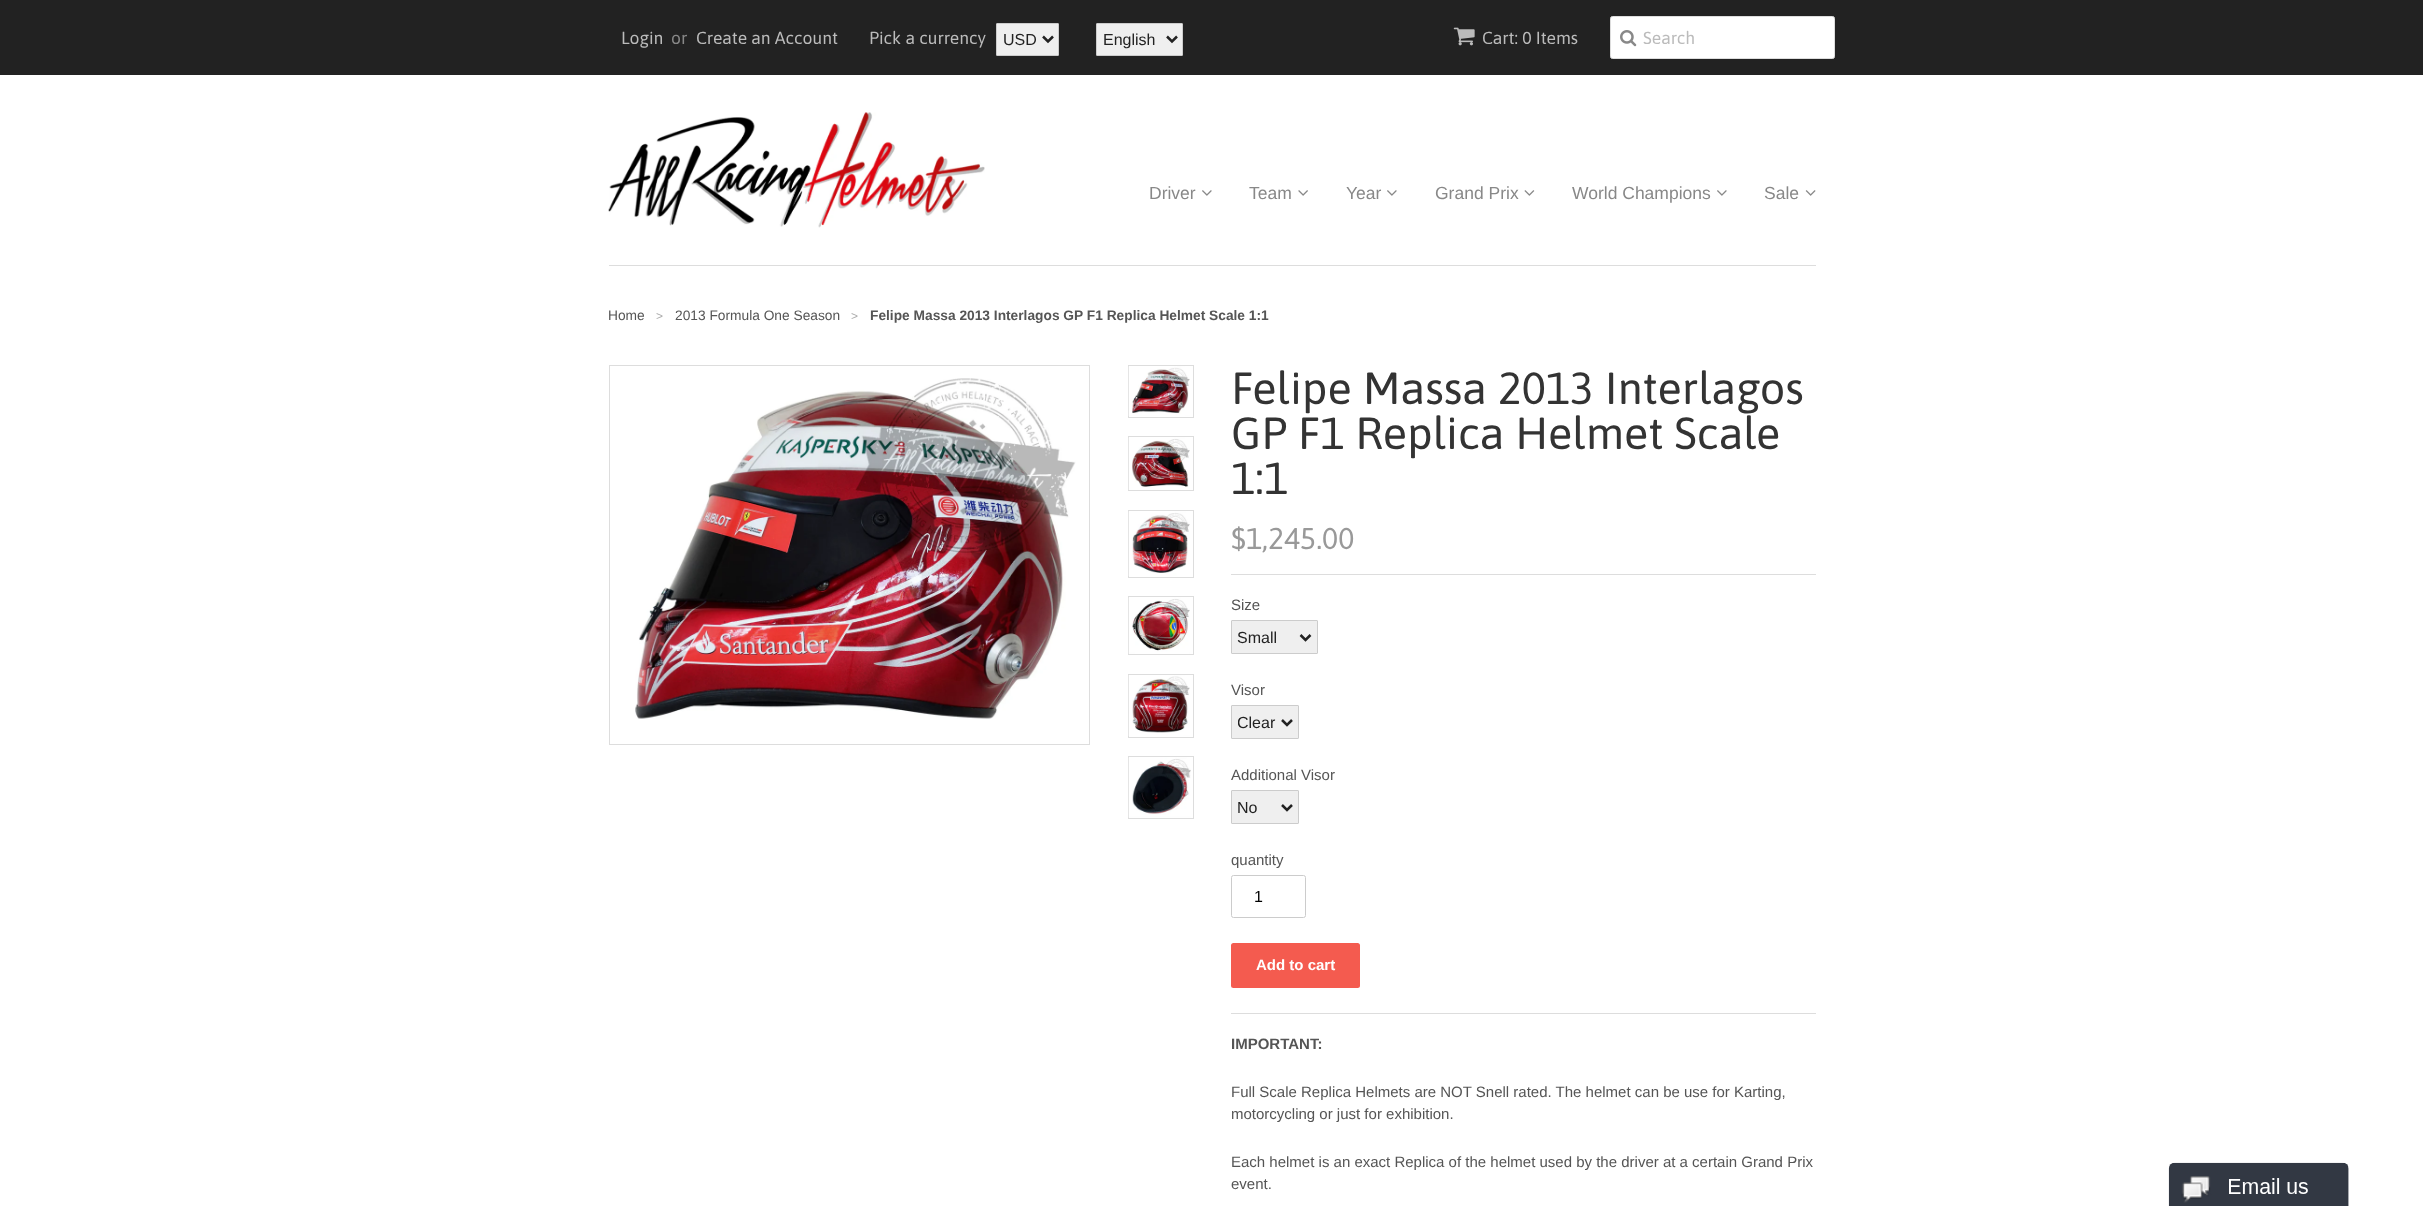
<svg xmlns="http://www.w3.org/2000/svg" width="2423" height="1206">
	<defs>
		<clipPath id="clip1"><rect x="1238" y="711" width="40" height="22" /></clipPath>
	</defs>
	<rect width="100%" height="100%" fill="#FFFFFF" />
	<rect x="0" y="0" width="2423" height="75" fill="#222222" />
	<text x="621" y="44" font-family="Asap" font-size="17.5" fill="#BBBBBB">Login</text>
	<text x="671" y="44" font-family="Asap" font-size="17.5" fill="#888888">or</text>
	<g font-family="Asap" font-size="17.5" fill="#BBBBBB">
		<text x="696" y="44">Create an Account</text>
		<text x="869" y="44">Pick a currency</text>
	</g>
	<rect x="996.5" y="23.5" width="62" height="32" rx="0.5" fill="#EFEFEF" stroke="#CCCCCC" />
	<path d="M1043 36.5L1048 41.5L1053 36.5" fill="none" stroke="#222222" stroke-width="2.5" />
	<text x="1003" y="45" font-family="Liberation Sans" font-size="16" fill="#222222">USD</text>
	<rect x="1096.5" y="23.5" width="86" height="32" rx="0.5" fill="#EFEFEF" stroke="#CCCCCC" />
	<path d="M1167 36.5L1172 41.5L1177 36.5" fill="none" stroke="#222222" stroke-width="2.5" />
	<text x="1103" y="45" font-family="Liberation Sans" font-size="16" fill="#222222">English</text>
	<image x="1453" y="27" width="22" height="19" href="assets/img1.png" />
	<text x="1482" y="44" font-family="Asap" font-size="17.5" fill="#BBBBBB">Cart: 0 Items</text>
	<rect x="1610.5" y="16.5" width="224" height="42" rx="2" fill="#FFFFFF" stroke="#DDDDDD" />
	<image x="1620" y="30" width="17" height="17" href="assets/img2.png" />
	<text x="1643" y="44" font-family="Asap" font-size="17.5" fill="#BBBBBB">Search</text>
	<rect x="609" y="265" width="1207" height="1" fill="#DDDDDD" />
	<image x="608" y="112" width="377" height="116" href="assets/img3.png" />
	<text x="1149" y="199" font-family="Liberation Sans" font-size="17.5" fill="#888888">Driver</text>
	<image x="1202" y="190" width="10" height="6" href="assets/img4.png" />
	<text x="1249" y="199" font-family="Liberation Sans" font-size="17.5" fill="#888888">Team</text>
	<image x="1298" y="190" width="10" height="6" href="assets/img5.png" />
	<text x="1346" y="199" font-family="Liberation Sans" font-size="17.5" fill="#888888">Year</text>
	<image x="1387" y="190" width="10" height="6" href="assets/img4.png" />
	<text x="1435" y="199" font-family="Liberation Sans" font-size="17.5" fill="#888888">Grand Prix</text>
	<image x="1524" y="190" width="11" height="6" href="assets/img6.png" />
	<text x="1572" y="199" font-family="Liberation Sans" font-size="17.5" fill="#888888">World Champions</text>
	<image x="1717" y="190" width="10" height="6" href="assets/img4.png" />
	<text x="1764" y="199" font-family="Liberation Sans" font-size="17.5" fill="#888888">Sale</text>
	<image x="1805" y="190" width="11" height="6" href="assets/img7.png" />
	<text x="608" y="320" font-family="Liberation Sans" font-size="13.75" fill="#555555">Home</text>
	<text x="656" y="320" font-family="Liberation Sans" font-size="12" fill="#AAAAAA">&gt;</text>
	<text x="675" y="320" font-family="Liberation Sans" font-size="13.75" fill="#555555">2013 Formula One Season</text>
	<text x="851" y="320" font-family="Liberation Sans" font-size="12" fill="#AAAAAA">&gt;</text>
	<text x="870" y="320" font-family="Liberation Sans" font-size="13.75" font-weight="700" fill="#555555">Felipe Massa 2013 Interlagos GP F1 Replica Helmet Scale 1:1</text>
	<rect x="609.5" y="365.5" width="480" height="379" fill="none" stroke="#DDDDDD" />
	<image x="635" y="378" width="441" height="341" href="assets/img8.png" />
	<rect x="1128.5" y="365.5" width="65" height="52" fill="none" stroke="#DDDDDD" />
	<image x="1128" y="366" width="62" height="50" href="assets/img9.png" />
	<rect x="1128.5" y="436.5" width="65" height="54" fill="none" stroke="#DDDDDD" />
	<image x="1128" y="437" width="62" height="53" href="assets/img10.png" />
	<rect x="1128.5" y="510.5" width="65" height="67" fill="none" stroke="#DDDDDD" />
	<image x="1128" y="511" width="62" height="65" href="assets/img11.png" />
	<rect x="1128.5" y="596.5" width="65" height="58" fill="none" stroke="#DDDDDD" />
	<image x="1128" y="597" width="62" height="57" href="assets/img12.png" />
	<rect x="1128.5" y="674.5" width="65" height="63" fill="none" stroke="#DDDDDD" />
	<image x="1128" y="675" width="62" height="61" href="assets/img13.png" />
	<rect x="1128.5" y="756.5" width="65" height="62" fill="none" stroke="#DDDDDD" />
	<image x="1128" y="757" width="63" height="61" href="assets/img14.png" />
	<g font-family="Asap" font-size="45" fill="#333333">
		<text x="1231" y="404">Felipe Massa 2013 Interlagos</text>
		<text x="1231" y="449">GP F1 Replica Helmet Scale</text>
		<text x="1231" y="494">1:1</text>
	</g>
	<text x="1231" y="549" font-family="Asap" font-size="30" fill="#999999">$1,245.00</text>
	<rect x="1231" y="574" width="585" height="1" fill="#DDDDDD" />
	<rect x="1231" y="1013" width="585" height="1" fill="#DDDDDD" />
	<text x="1231" y="610" font-family="Liberation Sans" font-size="15" fill="#555555">Size</text>
	<rect x="1231.5" y="620.5" width="86" height="33" rx="0.5" fill="#EFEFEF" stroke="#CCCCCC" />
	<path d="M1300.5 635L1305.5 640L1310.5 635" fill="none" stroke="#222222" stroke-width="2.5" />
	<text x="1237" y="643" font-family="Liberation Sans" font-size="16" fill="#222222">Small</text>
	<text x="1231" y="695" font-family="Liberation Sans" font-size="15" fill="#555555">Visor</text>
	<rect x="1231.5" y="705.5" width="67" height="33" rx="0.5" fill="#EFEFEF" stroke="#CCCCCC" />
	<path d="M1282 720L1287 725L1292 720" fill="none" stroke="#222222" stroke-width="2.5" />
	<g clip-path="url(#clip1)">
		<text x="1237" y="728" font-family="Liberation Sans" font-size="16" fill="#222222">Clear</text>
	</g>
	<text x="1231" y="780" font-family="Liberation Sans" font-size="15" fill="#555555">Additional Visor</text>
	<rect x="1231.5" y="790.5" width="67" height="33" rx="0.5" fill="#EFEFEF" stroke="#CCCCCC" />
	<path d="M1282 805L1287 810L1292 805" fill="none" stroke="#222222" stroke-width="2.5" />
	<text x="1237" y="813" font-family="Liberation Sans" font-size="16" fill="#222222">No</text>
	<text x="1231" y="865" font-family="Liberation Sans" font-size="15" fill="#555555">quantity</text>
	<rect x="1231.5" y="875.5" width="74" height="42" rx="2" fill="none" stroke="#CCCCCC" />
	<text x="1254" y="902" font-family="Liberation Sans" font-size="16" fill="#000000">1</text>
	<rect x="1231" y="943" width="129" height="45" rx="2.5" fill="#F45B4F" />
	<text x="1256" y="970" font-family="Liberation Sans" font-size="15" font-weight="700" fill="#FFFFFF">Add to cart</text>
	<text x="1231" y="1049" font-family="Liberation Sans" font-size="15" font-weight="700" fill="#555555">IMPORTANT:</text>
	<g font-family="Liberation Sans" font-size="15" fill="#555555">
		<text x="1231" y="1097">Full Scale Replica Helmets are NOT Snell rated. The helmet can be use for Karting,</text>
		<text x="1231" y="1119">motorcycling or just for exhibition.</text>
		<text x="1231" y="1167">Each helmet is an exact Replica of the helmet used by the driver at a certain Grand Prix</text>
		<text x="1231" y="1189">event.</text>
	</g>
	<image x="2168" y="1162" width="181" height="44" href="assets/img15.png" />
</svg>
